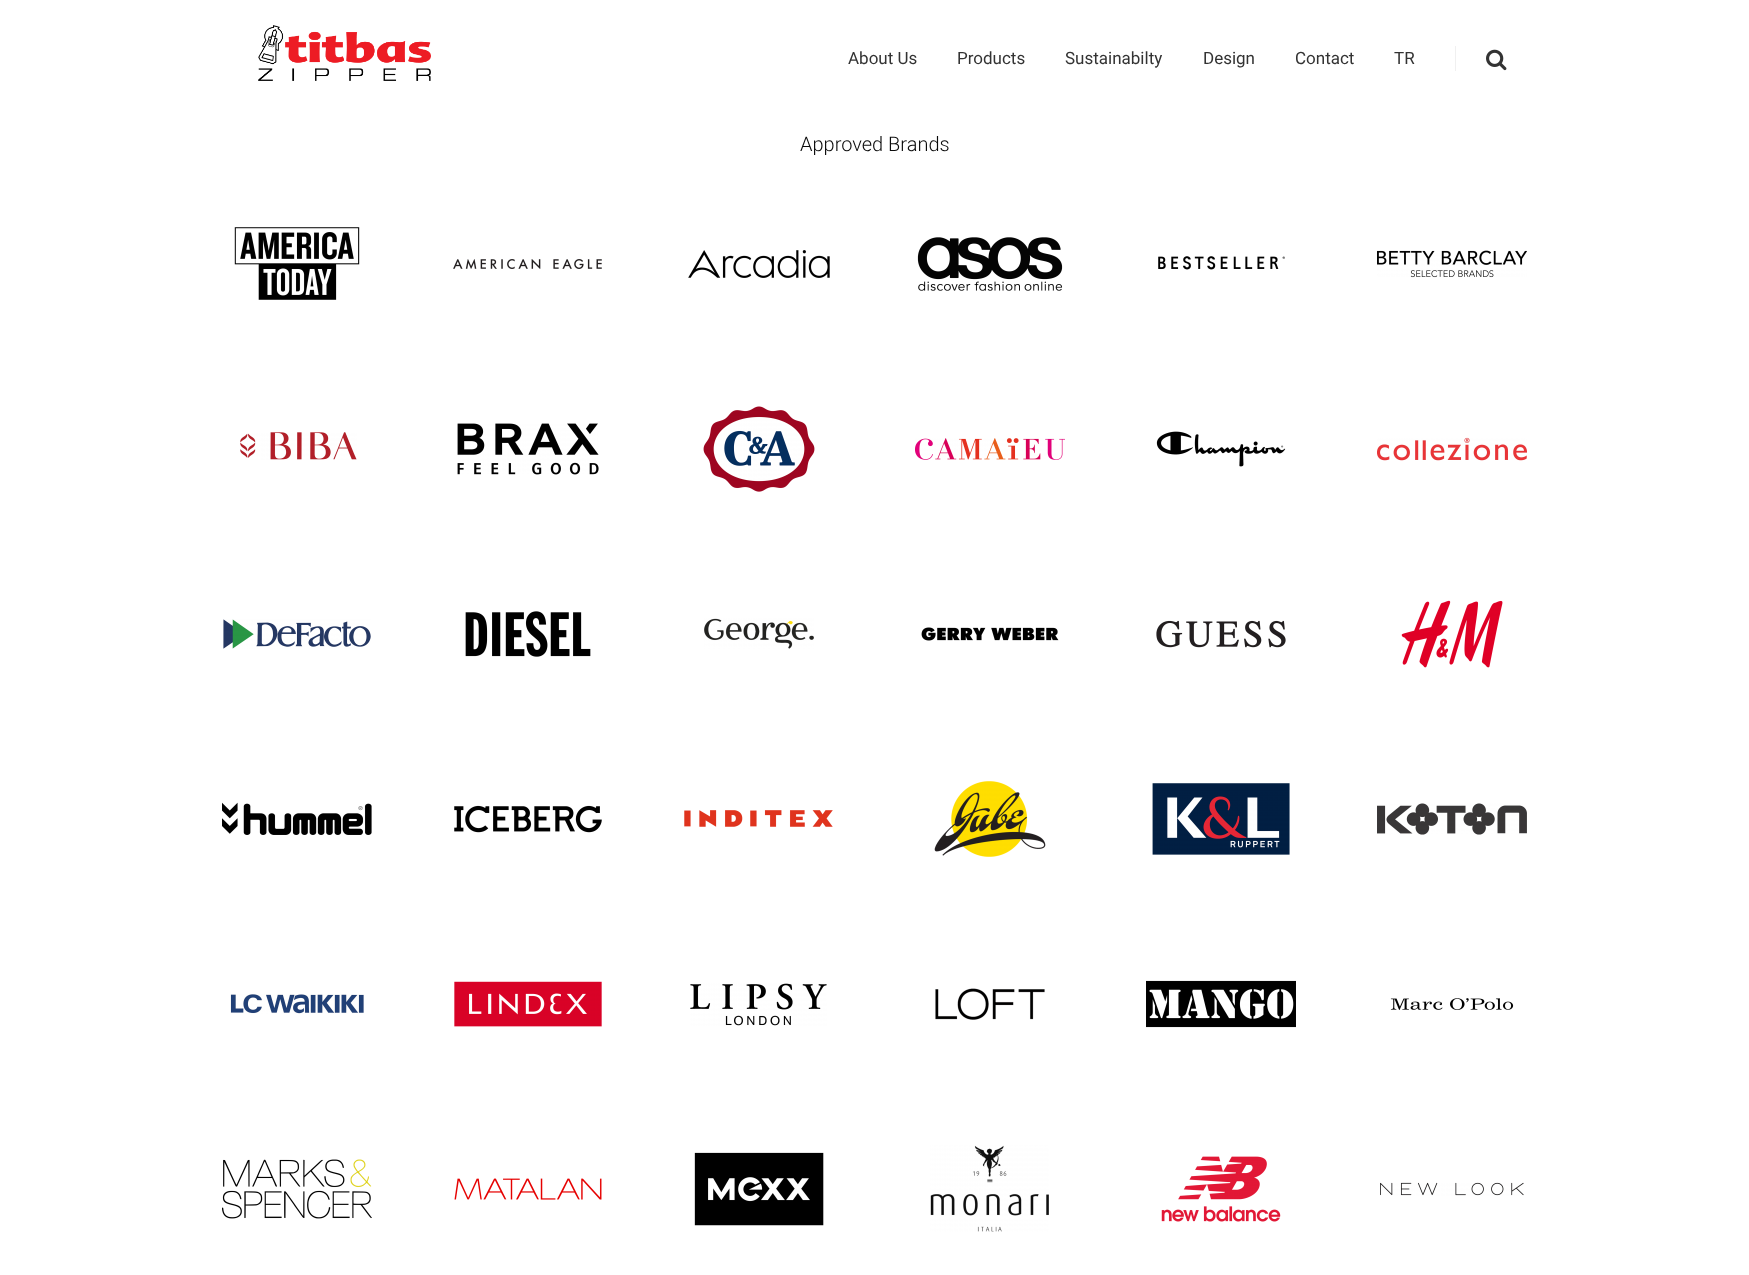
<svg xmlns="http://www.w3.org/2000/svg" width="1749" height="1275">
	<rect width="100%" height="100%" fill="#FFFFFF" />
	<image x="258" y="25" width="173" height="56" href="assets/img1.png" />
	<g font-family="Roboto" font-size="17" fill="#333333">
		<text x="848" y="64">About Us</text>
		<text x="957" y="64">Products</text>
		<text x="1065" y="64">Sustainabilty</text>
		<text x="1203" y="64">Design</text>
		<text x="1295" y="64">Contact</text>
		<text x="1394" y="64">TR</text>
	</g>
	<rect x="1455" y="46" width="1" height="25" fill="#F0F0F0" />
	<image x="1486" y="49" width="21" height="22" href="assets/img2.png" />
	<text x="800" y="151" font-family="Roboto" font-size="20" font-weight="300" fill="#0A0A0A">Approved Brands</text>
	<image x="234" y="227" width="126" height="73" href="assets/img3.png" />
	<image x="453" y="259" width="149" height="10" href="assets/img4.png" />
	<image x="688" y="250" width="142" height="28" href="assets/img5.png" />
	<image x="917" y="237" width="146" height="54" href="assets/img6.png" />
	<image x="1158" y="256" width="127" height="14" href="assets/img7.png" />
	<image x="1377" y="250" width="150" height="28" href="assets/img8.png" />
	<image x="240" y="432" width="117" height="28" href="assets/img9.png" />
	<image x="457" y="423" width="142" height="52" href="assets/img10.png" />
	<image x="703" y="406" width="112" height="86" href="assets/img11.png" />
	<image x="915" y="438" width="150" height="22" href="assets/img12.png" />
	<image x="1156" y="431" width="130" height="36" href="assets/img13.png" />
	<image x="1377" y="437" width="150" height="24" href="assets/img14.png" />
	<image x="223" y="619" width="148" height="30" href="assets/img15.png" />
	<image x="465" y="611" width="126" height="46" href="assets/img16.png" />
	<image x="704" y="618" width="110" height="31" href="assets/img17.png" />
	<image x="921" y="627" width="138" height="14" href="assets/img18.png" />
	<image x="1156" y="620" width="130" height="28" href="assets/img19.png" />
	<image x="1401" y="600" width="102" height="68" href="assets/img20.png" />
	<image x="222" y="802" width="150" height="33" href="assets/img21.png" />
	<image x="454" y="805" width="148" height="28" href="assets/img22.png" />
	<image x="684" y="810" width="149" height="17" href="assets/img23.png" />
	<image x="934" y="781" width="112" height="76" href="assets/img24.png" />
	<image x="1152" y="783" width="138" height="72" href="assets/img25.png" />
	<image x="1377" y="803" width="150" height="32" href="assets/img26.png" />
	<image x="230" y="994" width="134" height="20" href="assets/img27.png" />
	<image x="454" y="981" width="148" height="46" href="assets/img28.png" />
	<image x="690" y="983" width="137" height="43" href="assets/img29.png" />
	<image x="935" y="988" width="110" height="32" href="assets/img30.png" />
	<image x="1146" y="980" width="150" height="48" href="assets/img31.png" />
	<image x="1390" y="998" width="124" height="12" href="assets/img32.png" />
	<image x="222" y="1159" width="150" height="60" href="assets/img33.png" />
	<image x="454" y="1178" width="148" height="22" href="assets/img34.png" />
	<image x="694" y="1152" width="130" height="74" href="assets/img35.png" />
	<image x="930" y="1145" width="119" height="87" href="assets/img36.png" />
	<image x="1161" y="1156" width="120" height="66" href="assets/img37.png" />
	<image x="1380" y="1182" width="144" height="14" href="assets/img38.png" />
</svg>
